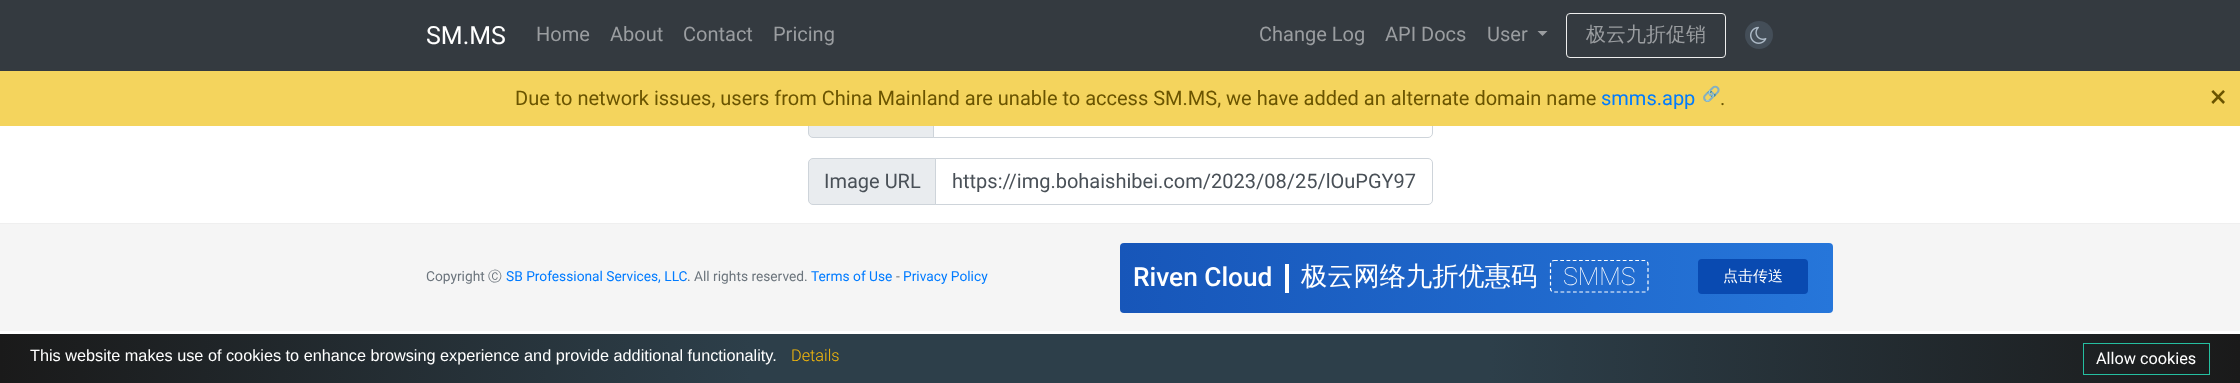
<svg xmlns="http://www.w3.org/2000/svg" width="2240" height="383">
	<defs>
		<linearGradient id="g1" gradientUnits="userSpaceOnUse" x1="1833" y1="278" x2="1120" y2="277"><stop offset="0" stop-color="#2676DA" /><stop offset="1" stop-color="#1756B9" /></linearGradient>
		<radialGradient id="g2" gradientUnits="userSpaceOnUse" cx="1120" cy="359" r="1120"><stop offset="0.33" stop-color="#2D3F4A" /><stop offset="1" stop-color="#1A1A1A" /></radialGradient>
	</defs>
	<rect width="100%" height="100%" fill="#FFFFFF" />
	<rect x="0" y="0" width="2240" height="71" fill="#343A40" />
	<text x="426" y="44" font-family="Roboto" font-size="25" fill="#FFFFFF">SM.MS</text>
	<g font-family="Roboto" font-size="20" fill="#9A9DA0">
		<text x="536" y="41">Home</text>
		<text x="610" y="41">About</text>
		<text x="683" y="41">Contact</text>
		<text x="773" y="41">Pricing</text>
		<text x="1259" y="41">Change Log</text>
		<text x="1385" y="41">API Docs</text>
		<text x="1487" y="41">User</text>
	</g>
	<path d="M1537.5 31H1547.5L1542.5 36Z" fill="#9A9DA0" />
	<rect x="1566.5" y="13.5" width="159" height="44" rx="3.5" fill="none" stroke="#EEEEEE" />
	<text x="1586" y="41" font-family="WenQuanYi Zen Hei" font-size="20" font-weight="500" fill="#9A9DA0">极云九折促销</text>
	<circle cx="1759" cy="35" r="14" fill="#444E58" />
	<image x="1750" y="26" width="17" height="18" href="assets/img1.png" />
	<path d="M813 90.5H933.5V137.5H813C810.5 137.5 808.5 135.5 808.5 133V95C808.5 92.5 810.5 90.5 813 90.5Z" fill="#E9ECEF" stroke="#CED4DA" />
	<path d="M933.5 90.5H1428C1430.5 90.5 1432.5 92.5 1432.5 95V133C1432.5 135.5 1430.5 137.5 1428 137.5H933.5Z" fill="none" stroke="#CED4DA" />
	<rect x="0" y="71" width="2240" height="55" fill="#F4D45D" />
	<text x="515" y="105" font-family="Roboto" font-size="20" fill="#6A5400">Due to network issues, users from China Mainland are unable to access SM.MS, we have added an alternate domain name</text>
	<text x="1601" y="105" font-family="Roboto" font-size="20" fill="#007BFF">smms.app</text>
	<text x="1702" y="99" font-family="Noto Color Emoji" font-size="15" fill="#007BFF">🔗</text>
	<text x="1720" y="105" font-family="Roboto" font-size="20" fill="#6A5400">.</text>
	<text x="2210" y="107" font-family="Roboto" font-size="31" fill="#6A5400">×</text>
	<path d="M813 158.5H935.5V204.5H813C810.5 204.5 808.5 202.5 808.5 200V163C808.5 160.5 810.5 158.5 813 158.5Z" fill="#E9ECEF" stroke="#CED4DA" />
	<text x="824" y="188" font-family="Roboto" font-size="20" fill="#495057">Image URL</text>
	<path d="M935.5 158.5H1428C1430.5 158.5 1432.5 160.5 1432.5 163V200C1432.5 202.5 1430.5 204.5 1428 204.5H935.5Z" fill="none" stroke="#CED4DA" />
	<text x="952" y="188" font-family="Roboto" font-size="20" fill="#495057">https://img.bohaishibei.com/2023/08/25/lOuPGY97</text>
	<rect x="0" y="224" width="2240" height="107" fill="#F5F5F5" />
	<rect x="0" y="223" width="2240" height="1" fill="#EFEFEF" />
	<text x="426" y="281" font-family="Roboto" font-size="13.75" fill="#6C757D">Copyright</text>
	<text x="488" y="281" font-family="WenQuanYi Zen Hei" font-size="13.75" font-weight="500" fill="#6C757D">Ⓒ</text>
	<text x="506" y="281" font-family="Roboto" font-size="13.75" fill="#007BFF">SB Professional Services, LLC</text>
	<text x="687" y="281" font-family="Roboto" font-size="13.75" fill="#6C757D">. All rights reserved.</text>
	<text x="811" y="281" font-family="Roboto" font-size="13.75" fill="#007BFF">Terms of Use</text>
	<text x="896" y="281" font-family="Roboto" font-size="13.75" fill="#6C757D">-</text>
	<text x="903" y="281" font-family="Roboto" font-size="13.75" fill="#007BFF">Privacy Policy</text>
	<rect x="1120" y="243" width="713" height="70" rx="4" fill="url(#g1)" />
	<rect x="1285" y="264" width="4" height="29" fill="#FFFFFF" />
	<text x="1133" y="286" font-family="Roboto" font-size="26.25" font-weight="500" fill="#FFFFFF">Riven Cloud</text>
	<text x="1301" y="285" font-family="WenQuanYi Zen Hei" font-size="26.25" font-weight="500" fill="#FFFFFF">极云网络九折优惠码</text>
	<path d="M1554 260.5H1645C1646.5 260.5 1648 262 1648 264V289C1648 290.5 1646.5 292 1645 292H1554C1552 292 1550.5 290.5 1550.5 289V264C1550.5 262 1552 260.5 1554 260.5Z" fill="none" stroke="#FFFFFF" stroke-width="1.2" stroke-dasharray="3.75 2.5" />
	<text x="1563" y="285" font-family="Roboto" font-size="25" font-weight="100" fill="#FFFFFF">SMMS</text>
	<rect x="1698" y="259" width="110" height="35" rx="4" fill="#094AB1" />
	<text x="1723" y="281" font-family="WenQuanYi Zen Hei" font-size="15" font-weight="500" fill="#FFFFFF">点击传送</text>
	<rect x="0" y="334" width="2240" height="49" fill="url(#g2)" />
	<text x="30" y="361" font-family="Liberation Sans" font-size="16.25" fill="#FFFFFF">This website makes use of cookies to enhance browsing experience and provide additional functionality.</text>
	<text x="791" y="361" font-family="Roboto" font-size="16.25" font-weight="300" fill="#FABC09">Details</text>
	<rect x="2083.5" y="343.5" width="126" height="31" fill="none" stroke="#25BEA0" />
	<text x="2096" y="364" font-family="Roboto" font-size="16.25" fill="#FFFFFF">Allow cookies</text>
</svg>
